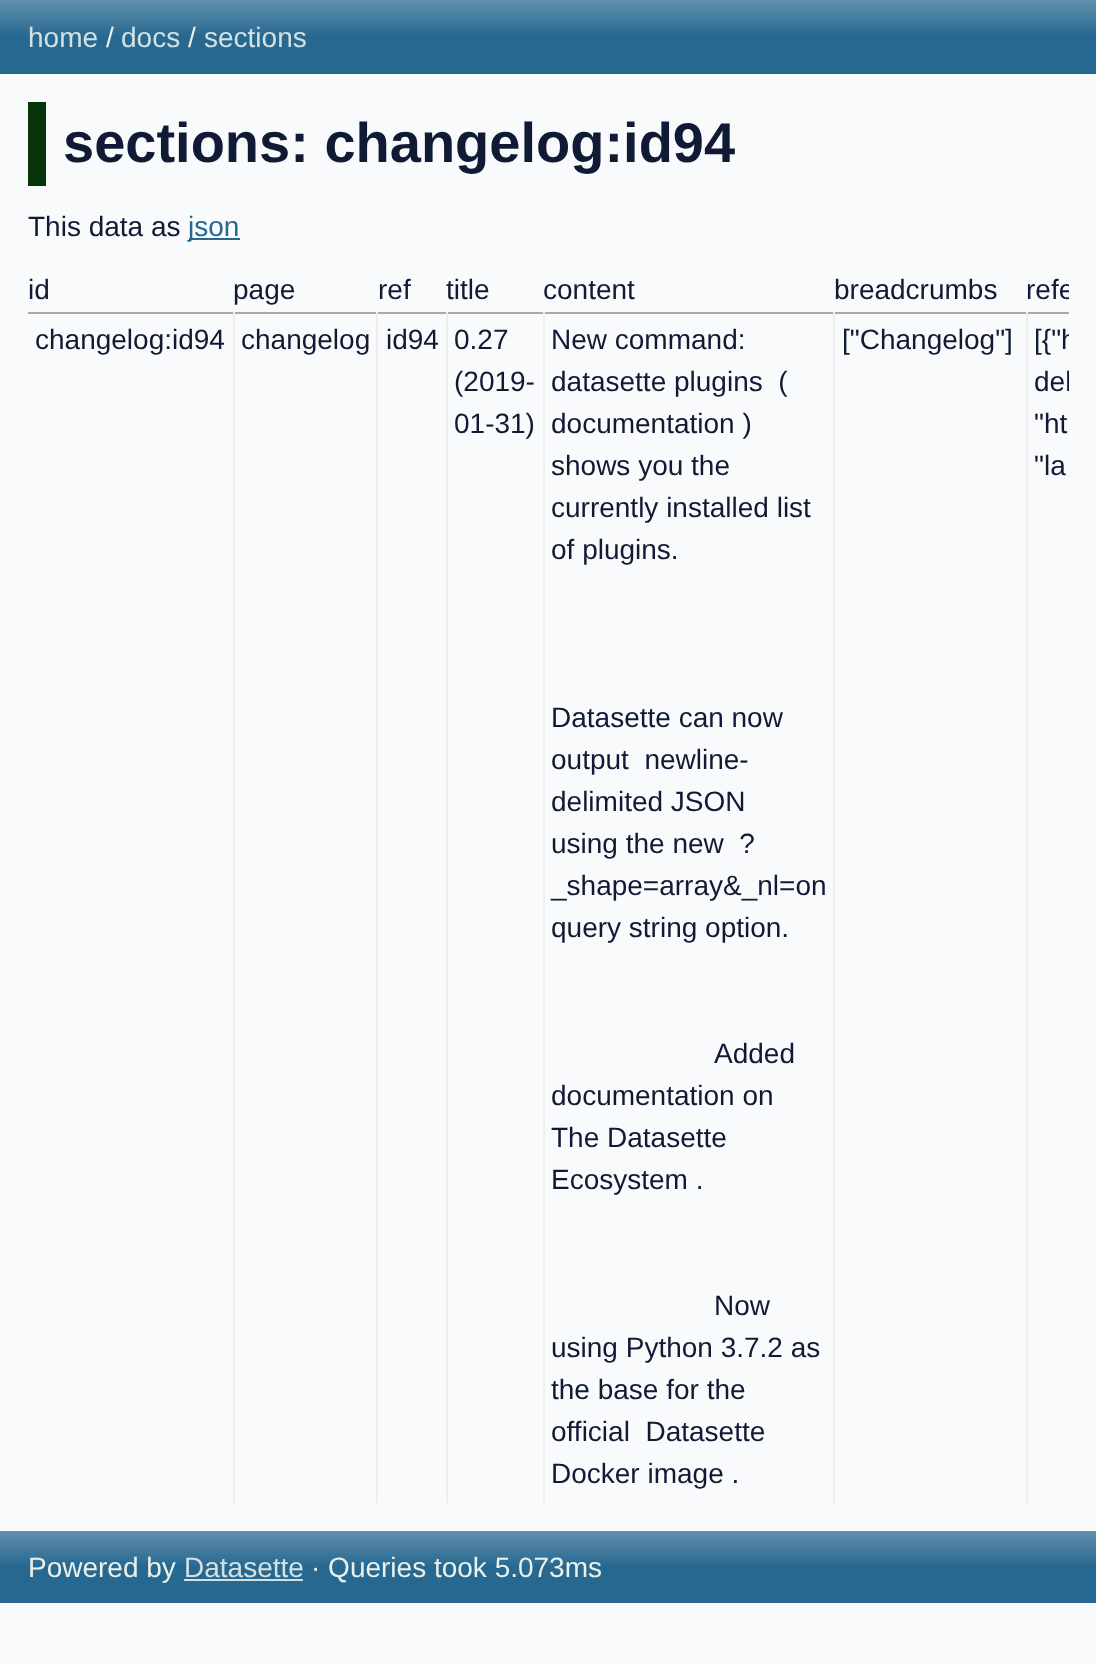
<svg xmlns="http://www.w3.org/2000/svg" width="1096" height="1664">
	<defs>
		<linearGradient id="g1" gradientUnits="userSpaceOnUse" x1="549" y1="0" x2="549" y2="74"><stop offset="0" stop-color="#6090AD" /><stop offset="0.5" stop-color="#276890" /></linearGradient>
		<clipPath id="clip1"><rect x="28" y="270" width="1041" height="1233" /></clipPath>
		<linearGradient id="g2" gradientUnits="userSpaceOnUse" x1="549" y1="1531" x2="549" y2="1603"><stop offset="0" stop-color="#6090AD" /><stop offset="0.5" stop-color="#276890" /></linearGradient>
	</defs>
	<rect width="100%" height="100%" fill="#F8FAFB" />
	<rect x="0" y="0" width="1096" height="74" fill="url(#g1)" />
	<text x="28" y="47" font-family="Liberation Sans" font-size="28" fill="#D4E1E0">home</text>
	<text x="106" y="47" font-family="Liberation Sans" font-size="28" fill="#EAF0EA">/</text>
	<text x="121" y="47" font-family="Liberation Sans" font-size="28" fill="#D4E1E0">docs</text>
	<text x="188" y="47" font-family="Liberation Sans" font-size="28" fill="#EAF0EA">/</text>
	<text x="204" y="47" font-family="Liberation Sans" font-size="28" fill="#D4E1E0">sections</text>
	<rect x="28" y="102" width="18" height="84" fill="#073407" />
	<text x="63" y="162" font-family="Liberation Sans" font-size="56" font-weight="700" fill="#111A35">sections: changelog:id94</text>
	<text x="28" y="236" font-family="Liberation Sans" font-size="28" fill="#111A35">This data as</text>
	<rect x="189" y="238" width="51" height="2" fill="#276890" />
	<text x="188" y="236" font-family="Liberation Sans" font-size="28" fill="#276890">json</text>
	<g font-family="Liberation Sans" font-size="28" fill="#111A35">
		<text x="28" y="299">id</text>
		<text x="233" y="299">page</text>
		<text x="378" y="299">ref</text>
		<text x="446" y="299">title</text>
		<text x="543" y="299">content</text>
		<text x="834" y="299">breadcrumbs</text>
	</g>
	<g clip-path="url(#clip1)">
		<text x="1026" y="299" font-family="Liberation Sans" font-size="28" fill="#111A35">refe</text>
	</g>
	<rect x="28" y="312" width="1041" height="2" fill="#AAAAAA" />
	<rect x="233" y="312" width="2" height="1191" fill="#EEEEEE" />
	<text x="35" y="349" font-family="Liberation Sans" font-size="28" fill="#111A35">changelog:id94</text>
	<rect x="376" y="312" width="2" height="1191" fill="#EEEEEE" />
	<text x="241" y="349" font-family="Liberation Sans" font-size="28" fill="#111A35">changelog</text>
	<rect x="446" y="312" width="2" height="1191" fill="#EEEEEE" />
	<text x="386" y="349" font-family="Liberation Sans" font-size="28" fill="#111A35">id94</text>
	<rect x="543" y="312" width="2" height="1191" fill="#EEEEEE" />
	<g font-family="Liberation Sans" font-size="28" fill="#111A35">
		<text x="454" y="349">0.27</text>
		<text x="454" y="391">(2019-</text>
		<text x="454" y="433">01-31)</text>
	</g>
	<rect x="833" y="312" width="2" height="1191" fill="#EEEEEE" />
	<g font-family="Liberation Sans" font-size="28" fill="#111A35">
		<text x="551" y="349">New command:</text>
		<text x="551" y="391" xml:space="preserve">datasette plugins  (</text>
		<text x="551" y="433">documentation )</text>
		<text x="551" y="475">shows you the</text>
		<text x="551" y="517">currently installed list</text>
		<text x="551" y="559">of plugins.</text>
		<text x="551" y="727">Datasette can now</text>
		<text x="551" y="769" xml:space="preserve">output  newline-</text>
		<text x="551" y="811">delimited JSON</text>
		<text x="551" y="853" xml:space="preserve">using the new  ?</text>
		<text x="551" y="895">_shape=array&amp;_nl=on</text>
		<text x="551" y="937">query string option.</text>
		<text x="714" y="1063">Added</text>
		<text x="551" y="1105">documentation on</text>
		<text x="551" y="1147">The Datasette</text>
		<text x="551" y="1189">Ecosystem .</text>
		<text x="714" y="1315">Now</text>
		<text x="551" y="1357">using Python 3.7.2 as</text>
		<text x="551" y="1399">the base for the</text>
		<text x="551" y="1441" xml:space="preserve">official  Datasette</text>
		<text x="551" y="1483">Docker image .</text>
	</g>
	<rect x="1026" y="312" width="2" height="1191" fill="#EEEEEE" />
	<text x="842" y="349" font-family="Liberation Sans" font-size="28" fill="#111A35">["Changelog"]</text>
	<g clip-path="url(#clip1)">
		<g font-family="Liberation Sans" font-size="28" fill="#111A35">
			<text x="1034" y="349">[{"h</text>
			<text x="1034" y="391">del</text>
		</g>
	</g>
	<g font-family="Liberation Sans" font-size="28" fill="#111A35">
		<text x="1034" y="433">"ht</text>
		<text x="1034" y="475">"la</text>
	</g>
	<rect x="0" y="1531" width="1096" height="72" fill="url(#g2)" />
	<text x="28" y="1577" font-family="Liberation Sans" font-size="28" fill="#EAF0EA">Powered by</text>
	<text x="184" y="1577" font-family="Liberation Sans" font-size="28" fill="#D4E1E0">Datasette</text>
	<rect x="184" y="1579" width="119" height="2" fill="#D4E1E0" />
	<text x="311" y="1577" font-family="Liberation Sans" font-size="28" fill="#EAF0EA">· Queries took 5.073ms</text>
</svg>
